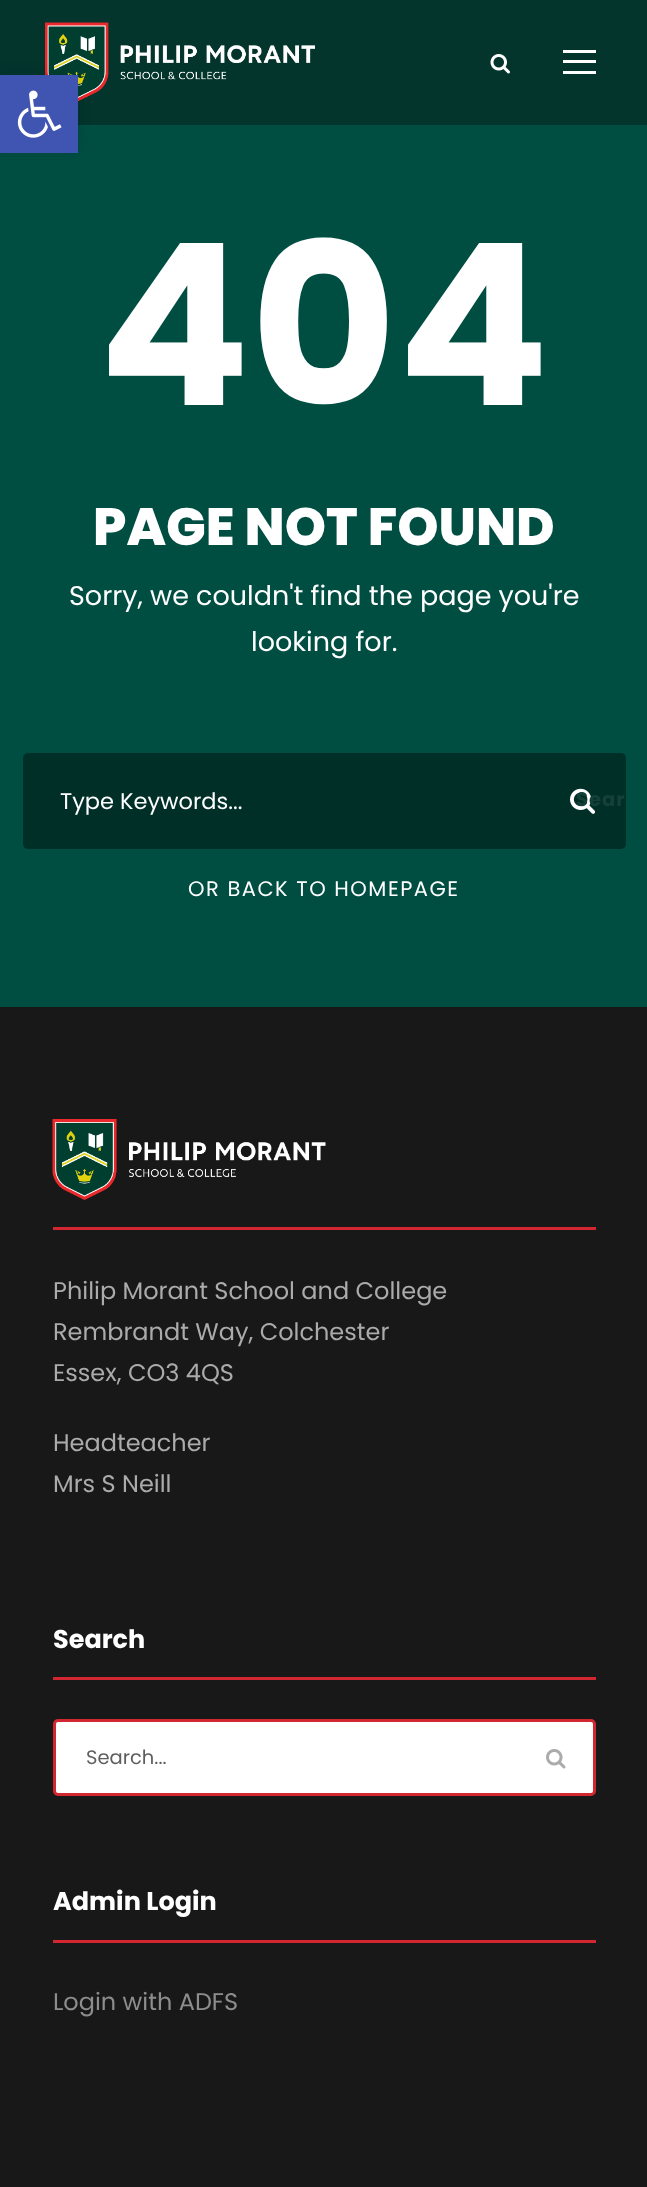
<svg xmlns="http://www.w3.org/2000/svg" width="647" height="2187">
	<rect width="100%" height="100%" fill="#181818" />
	<rect x="0" y="0" width="647" height="125" fill="#03352D" />
	<image x="45" y="22" width="270" height="80" href="assets/img1.png" />
	<image x="490" y="54" width="20" height="20" href="assets/img2.png" />
	<rect x="563" y="50" width="33" height="3" fill="#FFFFFF" />
	<rect x="563" y="60" width="33" height="3" fill="#FFFFFF" />
	<rect x="563" y="71" width="33" height="3" fill="#FFFFFF" />
	<rect x="0" y="125" width="647" height="882" fill="#004E42" />
	<rect x="0" y="75" width="78" height="78" fill="#000000" fill-opacity="0.1" filter="blur(7.5px)" />
	<rect x="0" y="75" width="78" height="78" fill="#4054B2" />
	<image x="17" y="90" width="45" height="48" href="assets/img3.png" />
	<text x="98" y="405" font-family="Poppins" font-size="225" font-weight="700" fill="#FFFFFF">404</text>
	<text x="93" y="545" font-family="Poppins" font-size="52.5" font-weight="800" fill="#FFFFFF">PAGE NOT FOUND</text>
	<g font-family="Poppins" font-size="27" fill="#FFFFFF">
		<text x="69" y="605">Sorry, we couldn't find the page you're</text>
		<text x="251" y="651">looking for.</text>
	</g>
	<rect x="23" y="753" width="603" height="96" rx="5" fill="#002F28" />
	<text x="60" y="809" font-family="Poppins" font-size="22.5" fill="#FFFFFF">Type Keywords...</text>
	<image x="570" y="788" width="25" height="26" href="assets/img4.png" />
	<text x="576" y="806" font-family="Poppins" font-size="19.5" font-weight="700" letter-spacing="1" fill="#15403A">Sear</text>
	<text x="188" y="896" font-family="Poppins" font-size="21" letter-spacing="1.5" fill="#FFFFFF">OR BACK TO HOMEPAGE</text>
	<image x="52" y="1119" width="274" height="81" href="assets/img5.png" />
	<rect x="53" y="1227" width="543" height="3" fill="#D22630" />
	<g font-family="Poppins" font-size="24" fill="#ABABAB">
		<text x="53" y="1299">Philip Morant School and College</text>
		<text x="53" y="1340">Rembrandt Way, Colchester</text>
		<text x="53" y="1381">Essex, CO3 4QS</text>
		<text x="53" y="1451">Headteacher</text>
		<text x="53" y="1492">Mrs S Neill</text>
	</g>
	<rect x="53" y="1677" width="543" height="3" fill="#D22630" />
	<text x="53" y="1648" font-family="Poppins" font-size="25.5" font-weight="700" fill="#FFFFFF">Search</text>
	<rect x="54.5" y="1720.5" width="540" height="74" rx="3.5" fill="#FFFFFF" stroke="#D22630" stroke-width="3" />
	<text x="86" y="1764" font-family="Poppins" font-size="19.5" fill="#5E5E5E">Search...</text>
	<image x="546" y="1749" width="20" height="20" href="assets/img6.png" />
	<rect x="53" y="1940" width="543" height="3" fill="#D22630" />
	<text x="53" y="1910" font-family="Poppins" font-size="25.5" font-weight="700" fill="#FFFFFF">Admin Login</text>
	<text x="53" y="2010" font-family="Poppins" font-size="24" fill="#8D8D8D">Login with ADFS</text>
</svg>
